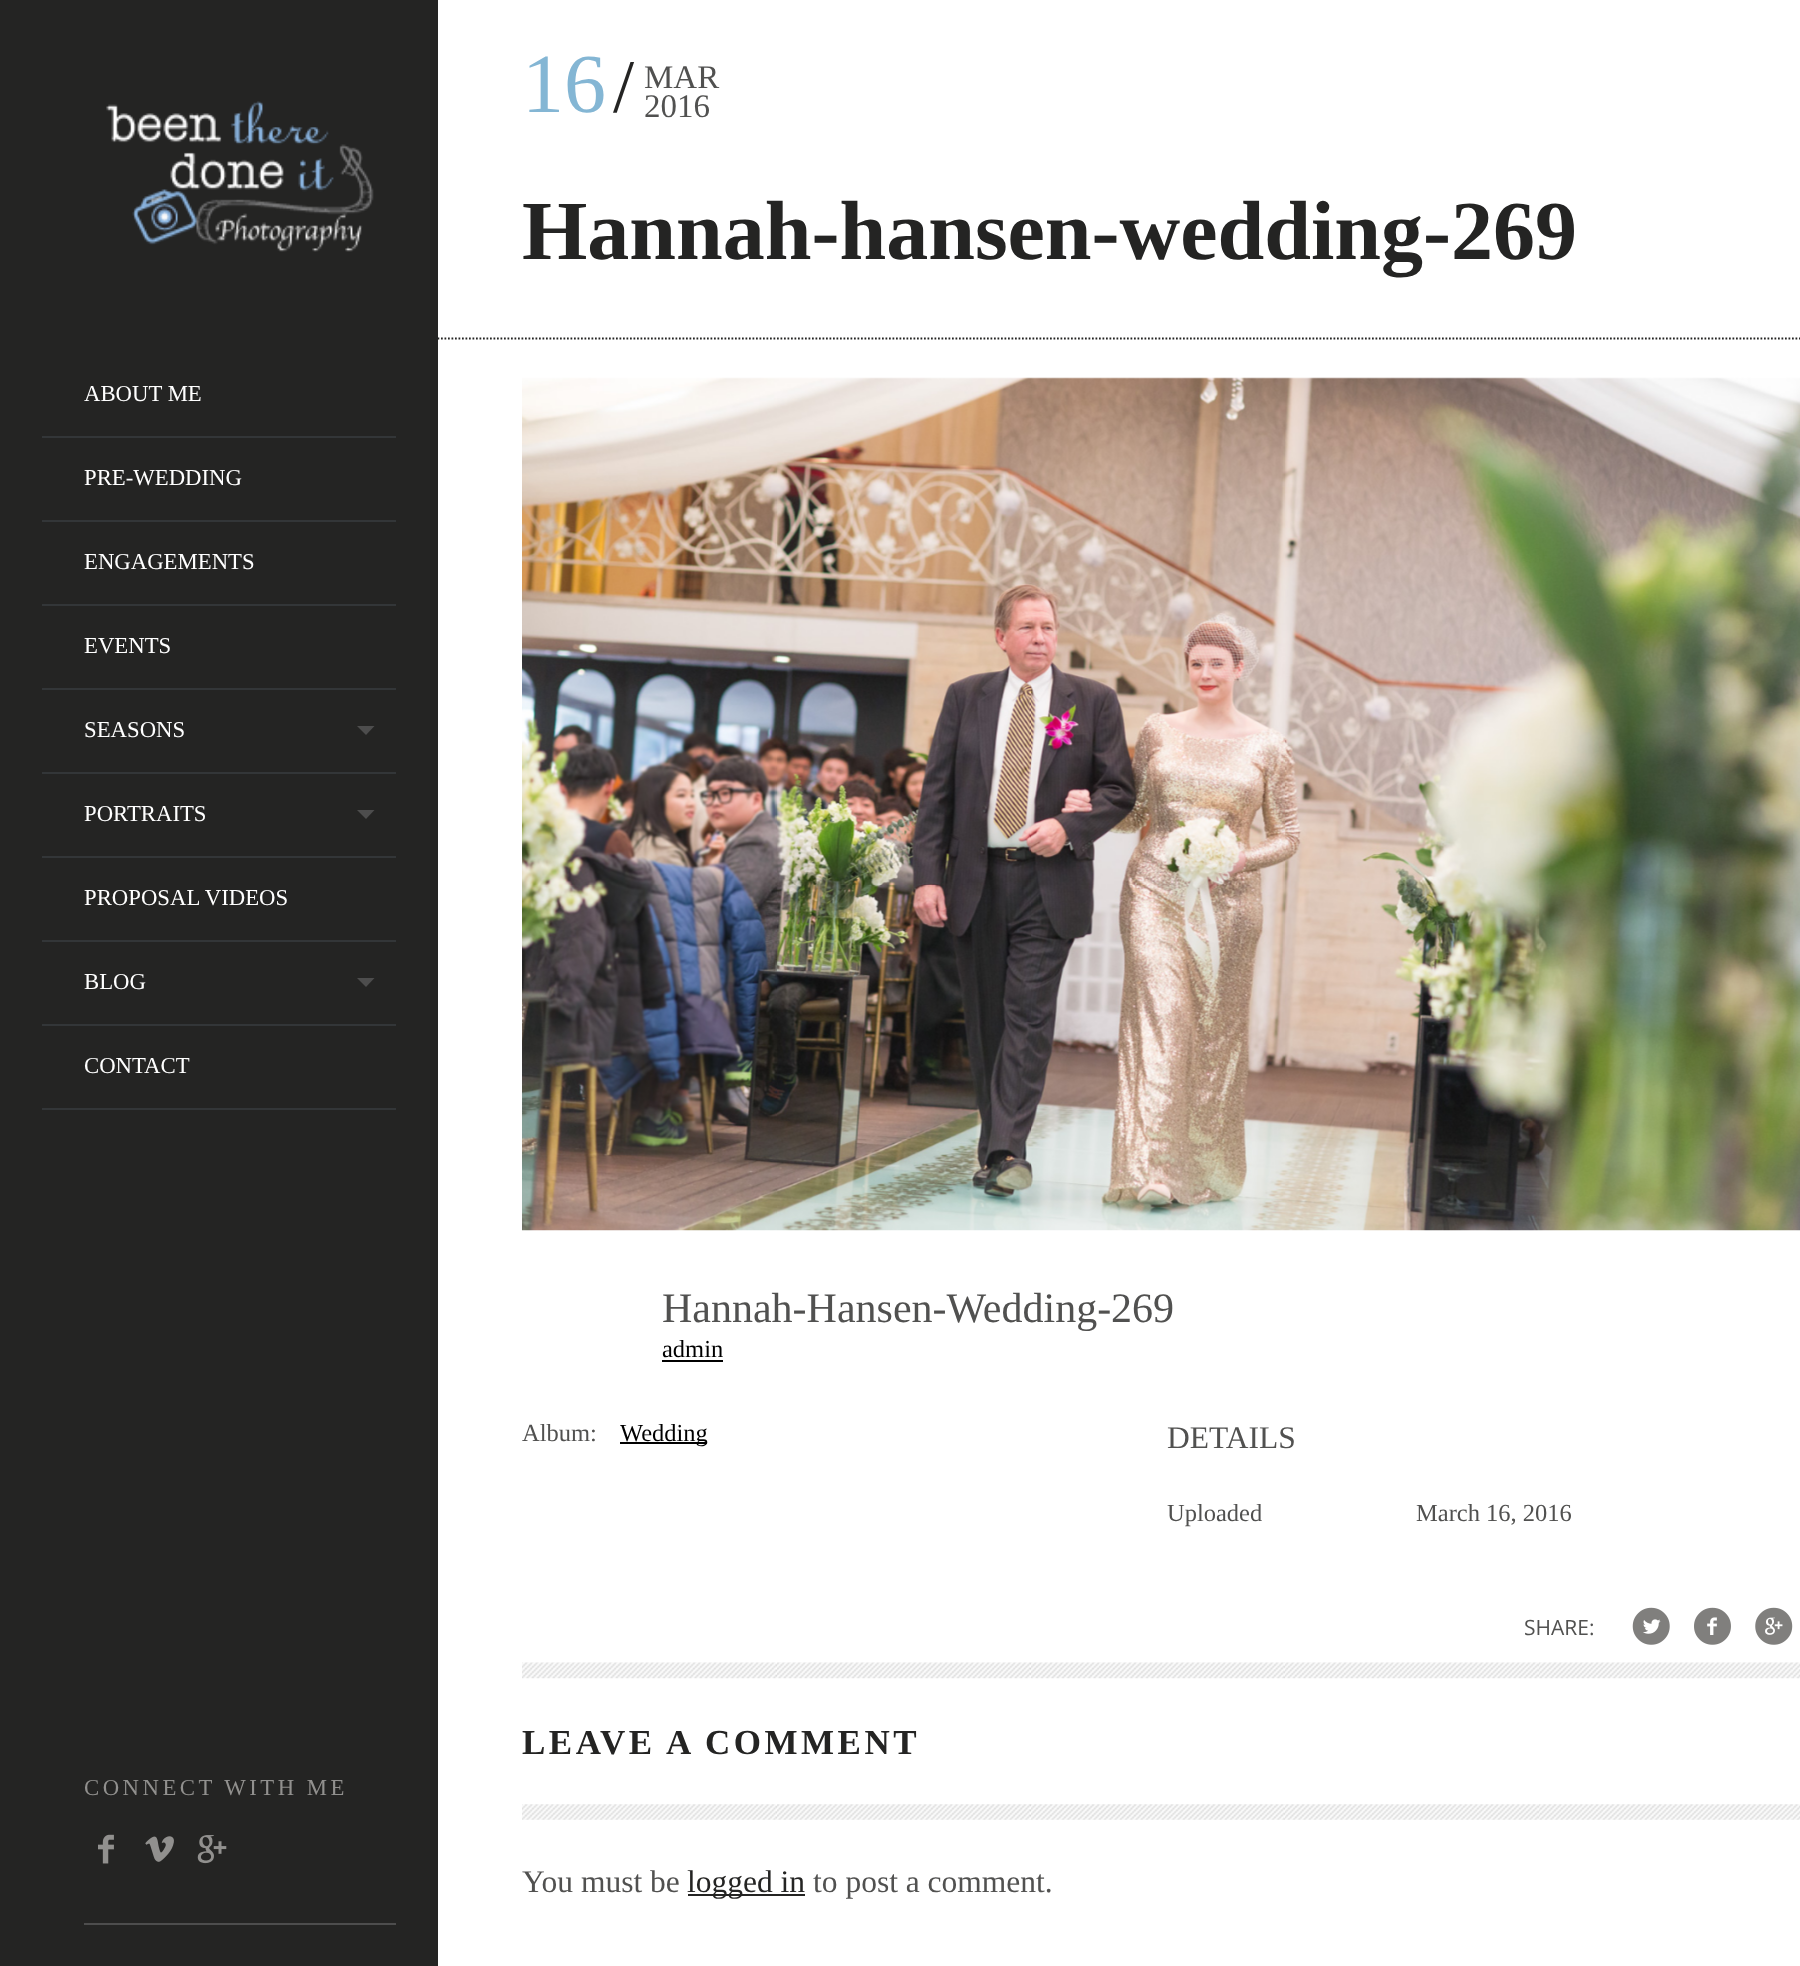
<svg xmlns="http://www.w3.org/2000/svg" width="1800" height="1966">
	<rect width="100%" height="100%" fill="#FFFFFF" />
	<path d="M437.5 338.5H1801" fill="none" stroke="#242423" stroke-width="1.8" stroke-dasharray="1.75 1.75" />
	<rect x="0" y="0" width="438" height="1966" fill="#242423" />
	<image x="106" y="101" width="268" height="151" href="assets/img1.png" />
	<rect x="42" y="436" width="354" height="2" fill="#333638" />
	<text x="84" y="401" font-family="Liberation Serif" font-size="22.75" fill="#FFFFFF">ABOUT ME</text>
	<rect x="42" y="520" width="354" height="2" fill="#333638" />
	<text x="84" y="485" font-family="Liberation Serif" font-size="22.75" fill="#FFFFFF">PRE-WEDDING</text>
	<rect x="42" y="604" width="354" height="2" fill="#333638" />
	<text x="84" y="569" font-family="Liberation Serif" font-size="22.75" fill="#FFFFFF">ENGAGEMENTS</text>
	<rect x="42" y="688" width="354" height="2" fill="#333638" />
	<text x="84" y="653" font-family="Liberation Serif" font-size="22.75" fill="#FFFFFF">EVENTS</text>
	<rect x="42" y="772" width="354" height="2" fill="#333638" />
	<text x="84" y="737" font-family="Liberation Serif" font-size="22.75" fill="#FFFFFF">SEASONS</text>
	<path d="M357 726H374.5L366 735Z" fill="#4D4D4D" />
	<rect x="42" y="856" width="354" height="2" fill="#333638" />
	<text x="84" y="821" font-family="Liberation Serif" font-size="22.75" fill="#FFFFFF">PORTRAITS</text>
	<path d="M357 810H374.5L366 819Z" fill="#4D4D4D" />
	<rect x="42" y="940" width="354" height="2" fill="#333638" />
	<text x="84" y="905" font-family="Liberation Serif" font-size="22.75" fill="#FFFFFF">PROPOSAL VIDEOS</text>
	<rect x="42" y="1024" width="354" height="2" fill="#333638" />
	<text x="84" y="989" font-family="Liberation Serif" font-size="22.75" fill="#FFFFFF">BLOG</text>
	<path d="M357 978H374.5L366 987Z" fill="#4D4D4D" />
	<rect x="42" y="1108" width="354" height="2" fill="#333638" />
	<text x="84" y="1073" font-family="Liberation Serif" font-size="22.75" fill="#FFFFFF">CONTACT</text>
	<rect x="84" y="1923" width="312" height="2" fill="#4D4D4D" />
	<text x="84" y="1795" font-family="Liberation Serif" font-size="22.75" letter-spacing="3.5" fill="#91908E">CONNECT WITH ME</text>
	<image x="98" y="1834" width="16" height="30" href="assets/img2.png" />
	<image x="145" y="1836" width="29" height="26" href="assets/img3.png" />
	<image x="197" y="1835" width="30" height="29" href="assets/img4.png" />
	<text x="522" y="112" font-family="Liberation Serif" font-size="84" fill="#84B6D4">16</text>
	<text x="613" y="112" font-family="Liberation Serif" font-size="76" fill="#242423">/</text>
	<g font-family="Liberation Serif" font-size="33" fill="#515150">
		<text x="644" y="88">MAR</text>
		<text x="644" y="117">2016</text>
	</g>
	<text x="522" y="259" font-family="Liberation Serif" font-size="84" font-weight="700" fill="#242423">Hannah-hansen-wedding-269</text>
	<image x="522" y="377" width="1278" height="854" href="assets/img5.png" />
	<text x="662" y="1322" font-family="Liberation Serif" font-size="42" fill="#515150">Hannah-Hansen-Wedding-269</text>
	<text x="662" y="1357" font-family="Liberation Serif" font-size="24.5" fill="#000000">admin</text>
	<rect x="662" y="1360" width="61" height="2" fill="#000000" />
	<text x="522" y="1441" font-family="Liberation Serif" font-size="24.5" fill="#515150">Album:</text>
	<rect x="620" y="1442" width="87" height="2" fill="#000000" />
	<text x="620" y="1441" font-family="Liberation Serif" font-size="24.5" fill="#000000">Wedding</text>
	<text x="1167" y="1448" font-family="Liberation Serif" font-size="31.5" fill="#515150">DETAILS</text>
	<g font-family="Liberation Serif" font-size="24.5" fill="#515150">
		<text x="1167" y="1521">Uploaded</text>
		<text x="1416" y="1521">March 16, 2016</text>
	</g>
	<text x="1524" y="1635" font-family="Open Sans" font-size="21" fill="#515150">SHARE:</text>
	<image x="1632" y="1607" width="38" height="38" href="assets/img6.png" />
	<image x="1694" y="1607" width="37" height="38" href="assets/img7.png" />
	<image x="1755" y="1607" width="38" height="38" href="assets/img8.png" />
	<image x="522" y="1662" width="1278" height="17" href="assets/img9.png" />
	<text x="522" y="1754" font-family="Liberation Serif" font-size="35" font-weight="700" letter-spacing="3.5" fill="#242423">LEAVE A COMMENT</text>
	<image x="522" y="1804" width="1278" height="16" href="assets/img10.png" />
	<text x="522" y="1892" font-family="Liberation Serif" font-size="31.5" fill="#515150">You must be</text>
	<rect x="688" y="1894" width="117" height="2" fill="#242423" />
	<text x="687" y="1892" font-family="Liberation Serif" font-size="31.5" fill="#242423">logged in</text>
	<text x="813" y="1892" font-family="Liberation Serif" font-size="31.5" fill="#515150">to post a comment.</text>
</svg>
